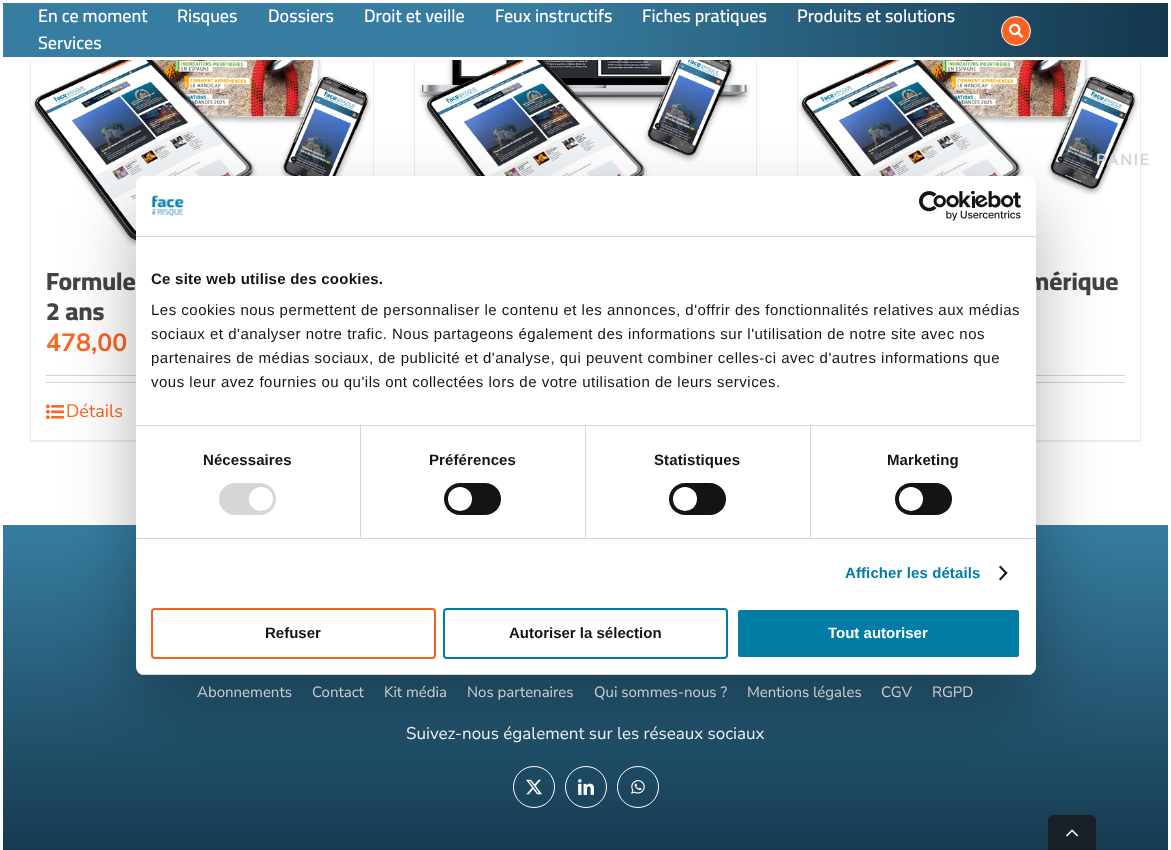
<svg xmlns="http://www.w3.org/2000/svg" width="1171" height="850">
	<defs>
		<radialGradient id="g1" gradientUnits="userSpaceOnUse" cx="3" cy="3" r="1166"><stop offset="0.46" stop-color="#377DA1" /><stop offset="1" stop-color="#14374B" /></radialGradient>
		<linearGradient id="g2" gradientUnits="userSpaceOnUse" x1="586" y1="525" x2="586" y2="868"><stop offset="0" stop-color="#377DA1" /><stop offset="1" stop-color="#14374B" /></linearGradient>
		<clipPath id="clip1"><rect x="136" y="176" width="900" height="499" rx="8" /></clipPath>
	</defs>
	<rect width="100%" height="100%" fill="#FFFFFF" />
	<rect x="3" y="3" width="1165" height="54" fill="url(#g1)" />
	<g font-family="Cairo" font-size="18" font-weight="600" fill="#FFFFFF">
		<text x="38" y="22">En ce moment</text>
		<text x="177" y="22">Risques</text>
		<text x="268" y="22">Dossiers</text>
		<text x="364" y="22">Droit et veille</text>
		<text x="495" y="22">Feux instructifs</text>
		<text x="642" y="22">Fiches pratiques</text>
		<text x="797" y="22">Produits et solutions</text>
		<text x="38" y="49">Services</text>
	</g>
	<circle cx="1016" cy="31" r="14.5" fill="#FF6321" stroke="#FFFFFF" />
	<image x="1009" y="23" width="14" height="15" href="assets/img1.png" />
	<rect x="756" y="60" width="1" height="116" fill="#E8EDF1" />
	<rect x="414" y="60" width="1" height="116" fill="#E8EDF1" />
	<image x="418" y="60" width="332" height="116" href="assets/img2.png" />
	<rect x="373" y="60" width="1" height="116" fill="#E8EDF1" />
	<rect x="30" y="440" width="106" height="2" fill="#E8EDF1" />
	<rect x="30" y="60" width="1" height="382" fill="#E8EDF1" />
	<image x="31" y="60" width="341" height="186" href="assets/img3.png" />
	<g font-family="Cairo" font-size="25" font-weight="800" fill="#444444">
		<text x="46" y="290">Formule</text>
		<text x="46" y="320">2 ans</text>
	</g>
	<text x="46" y="351" font-family="Nunito Sans" font-size="25" font-weight="700" fill="#FF6321">478,00</text>
	<rect x="46" y="375" width="90" height="1" fill="#D0D4D8" />
	<rect x="46" y="382" width="90" height="1" fill="#D0D4D8" />
	<image x="46" y="404" width="18" height="16" href="assets/img4.png" />
	<text x="66" y="417" font-family="Nunito Sans" font-size="18" fill="#FF6321">Détails</text>
	<rect x="1140" y="60" width="1" height="382" fill="#E8EDF1" />
	<rect x="1036" y="440" width="105" height="2" fill="#E8EDF1" />
	<rect x="797" y="60" width="1" height="116" fill="#E8EDF1" />
	<image x="798" y="60" width="341" height="135" href="assets/img5.png" />
	<text x="1028" y="290" font-family="Cairo" font-size="25" font-weight="800" fill="#444444">mérique</text>
	<rect x="1036" y="375" width="89" height="1" fill="#D0D4D8" />
	<rect x="1036" y="382" width="89" height="1" fill="#D0D4D8" />
	<rect x="3" y="525" width="1165" height="325" fill="url(#g2)" />
	<g font-family="Nunito Sans" font-size="15" fill="#FFFFFF">
		<text x="197" y="697">Abonnements</text>
		<text x="312" y="697">Contact</text>
		<text x="384" y="697">Kit média</text>
		<text x="467" y="697">Nos partenaires</text>
		<text x="594" y="697">Qui sommes-nous ?</text>
		<text x="747" y="697">Mentions légales</text>
		<text x="881" y="697">CGV</text>
		<text x="932" y="697">RGPD</text>
	</g>
	<text x="406" y="739" font-family="Nunito Sans" font-size="17" fill="#FFFFFF">Suivez-nous également sur les réseaux sociaux</text>
	<circle cx="534" cy="787" r="20.5" fill="none" stroke="#FFFFFF" />
	<image x="526" y="779" width="16" height="16" href="assets/img6.png" />
	<circle cx="586" cy="787" r="20.5" fill="none" stroke="#FFFFFF" />
	<image x="578" y="779" width="16" height="16" href="assets/img7.png" />
	<circle cx="638" cy="787" r="20.5" fill="none" stroke="#FFFFFF" />
	<image x="631" y="780" width="14" height="14" href="assets/img8.png" />
	<text x="1096" y="165" font-family="Nunito Sans" font-size="16" font-weight="700" letter-spacing="1.5" fill="#D1D5DA">PANIE</text>
	<rect x="136" y="208" width="900" height="499" rx="8" fill="#000000" fill-opacity="0.3" filter="blur(34px)" />
	<rect x="136" y="176" width="900" height="499" rx="8" fill="#FFFFFF" />
	<rect x="136" y="236" width="900" height="1" fill="#D6D6D6" />
	<image x="151" y="195" width="33" height="22" href="assets/img9.png" />
	<image x="919" y="191" width="102" height="30" href="assets/img10.png" />
	<rect x="136" y="425" width="900" height="1" fill="#D6D6D6" />
	<text x="151" y="284" font-family="Liberation Sans" font-size="15" font-weight="700" letter-spacing="0.25" fill="#141414">Ce site web utilise des cookies.</text>
	<g font-family="Liberation Sans" font-size="15" letter-spacing="0.5" fill="#141414">
		<text x="151" y="315">Les cookies nous permettent de personnaliser le contenu et les annonces, d'offrir des fonctionnalités relatives aux médias</text>
		<text x="151" y="339">sociaux et d'analyser notre trafic. Nous partageons également des informations sur l'utilisation de notre site avec nos</text>
		<text x="151" y="363">partenaires de médias sociaux, de publicité et d'analyse, qui peuvent combiner celles-ci avec d'autres informations que</text>
		<text x="151" y="387">vous leur avez fournies ou qu'ils ont collectées lors de votre utilisation de leurs services.</text>
	</g>
	<rect x="136" y="538" width="900" height="1" fill="#D6D6D6" />
	<rect x="360" y="426" width="1" height="112" fill="#D6D6D6" />
	<text x="203" y="465" font-family="Liberation Sans" font-size="15" font-weight="700" letter-spacing="0.1" fill="#141414">Nécessaires</text>
	<rect x="219" y="483" width="57" height="32" rx="16" fill="#D6D6D6" />
	<circle cx="261" cy="499" r="12" fill="#FFFFFF" />
	<rect x="585" y="426" width="1" height="112" fill="#D6D6D6" />
	<text x="429" y="465" font-family="Liberation Sans" font-size="15" font-weight="700" letter-spacing="0.1" fill="#141414">Préférences</text>
	<rect x="444" y="483" width="57" height="32" rx="16" fill="#141414" />
	<circle cx="460" cy="499" r="12" fill="#FFFFFF" />
	<rect x="810" y="426" width="1" height="112" fill="#D6D6D6" />
	<text x="654" y="465" font-family="Liberation Sans" font-size="15" font-weight="700" letter-spacing="0.1" fill="#141414">Statistiques</text>
	<rect x="669" y="483" width="57" height="32" rx="16" fill="#141414" />
	<circle cx="685" cy="499" r="12" fill="#FFFFFF" />
	<text x="887" y="465" font-family="Liberation Sans" font-size="15" font-weight="700" letter-spacing="0.1" fill="#141414">Marketing</text>
	<rect x="895" y="483" width="57" height="32" rx="16" fill="#141414" />
	<circle cx="911" cy="499" r="12" fill="#FFFFFF" />
	<text x="845" y="578" font-family="Liberation Sans" font-size="15" font-weight="700" letter-spacing="0.1" fill="#017CA5">Afficher les détails</text>
	<path d="M1000.5 565.5L1007.5 573L1006 574.5L999 567Z" fill="#141414" />
	<path d="M1006 571.5L1007.5 573L1000.5 580.5L999 579Z" fill="#141414" />
	<g clip-path="url(#clip1)">
		<rect x="136" y="674" width="900" height="1" fill="#D6D6D6" />
	</g>
	<rect x="152" y="609" width="283" height="49" rx="3" fill="none" stroke="#EE631E" stroke-width="2" />
	<text x="265" y="638" font-family="Liberation Sans" font-size="15" font-weight="700" fill="#141414">Refuser</text>
	<rect x="444" y="609" width="283" height="49" rx="3" fill="none" stroke="#017CA5" stroke-width="2" />
	<text x="509" y="638" font-family="Liberation Sans" font-size="15" font-weight="700" fill="#141414">Autoriser la sélection</text>
	<rect x="737" y="609" width="283" height="49" rx="3" fill="#017CA5" stroke="#FFFFFF" stroke-width="2" />
	<text x="828" y="638" font-family="Liberation Sans" font-size="15" font-weight="700" fill="#FFFFFF">Tout autoriser</text>
	<path d="M1054 815H1090C1093.5 815 1096 817.5 1096 821V850H1048V821C1048 817.5 1050.5 815 1054 815Z" fill="#191D21" fill-opacity="0.9" />
	<image x="1066" y="829" width="13" height="8" href="assets/img11.png" />
</svg>
